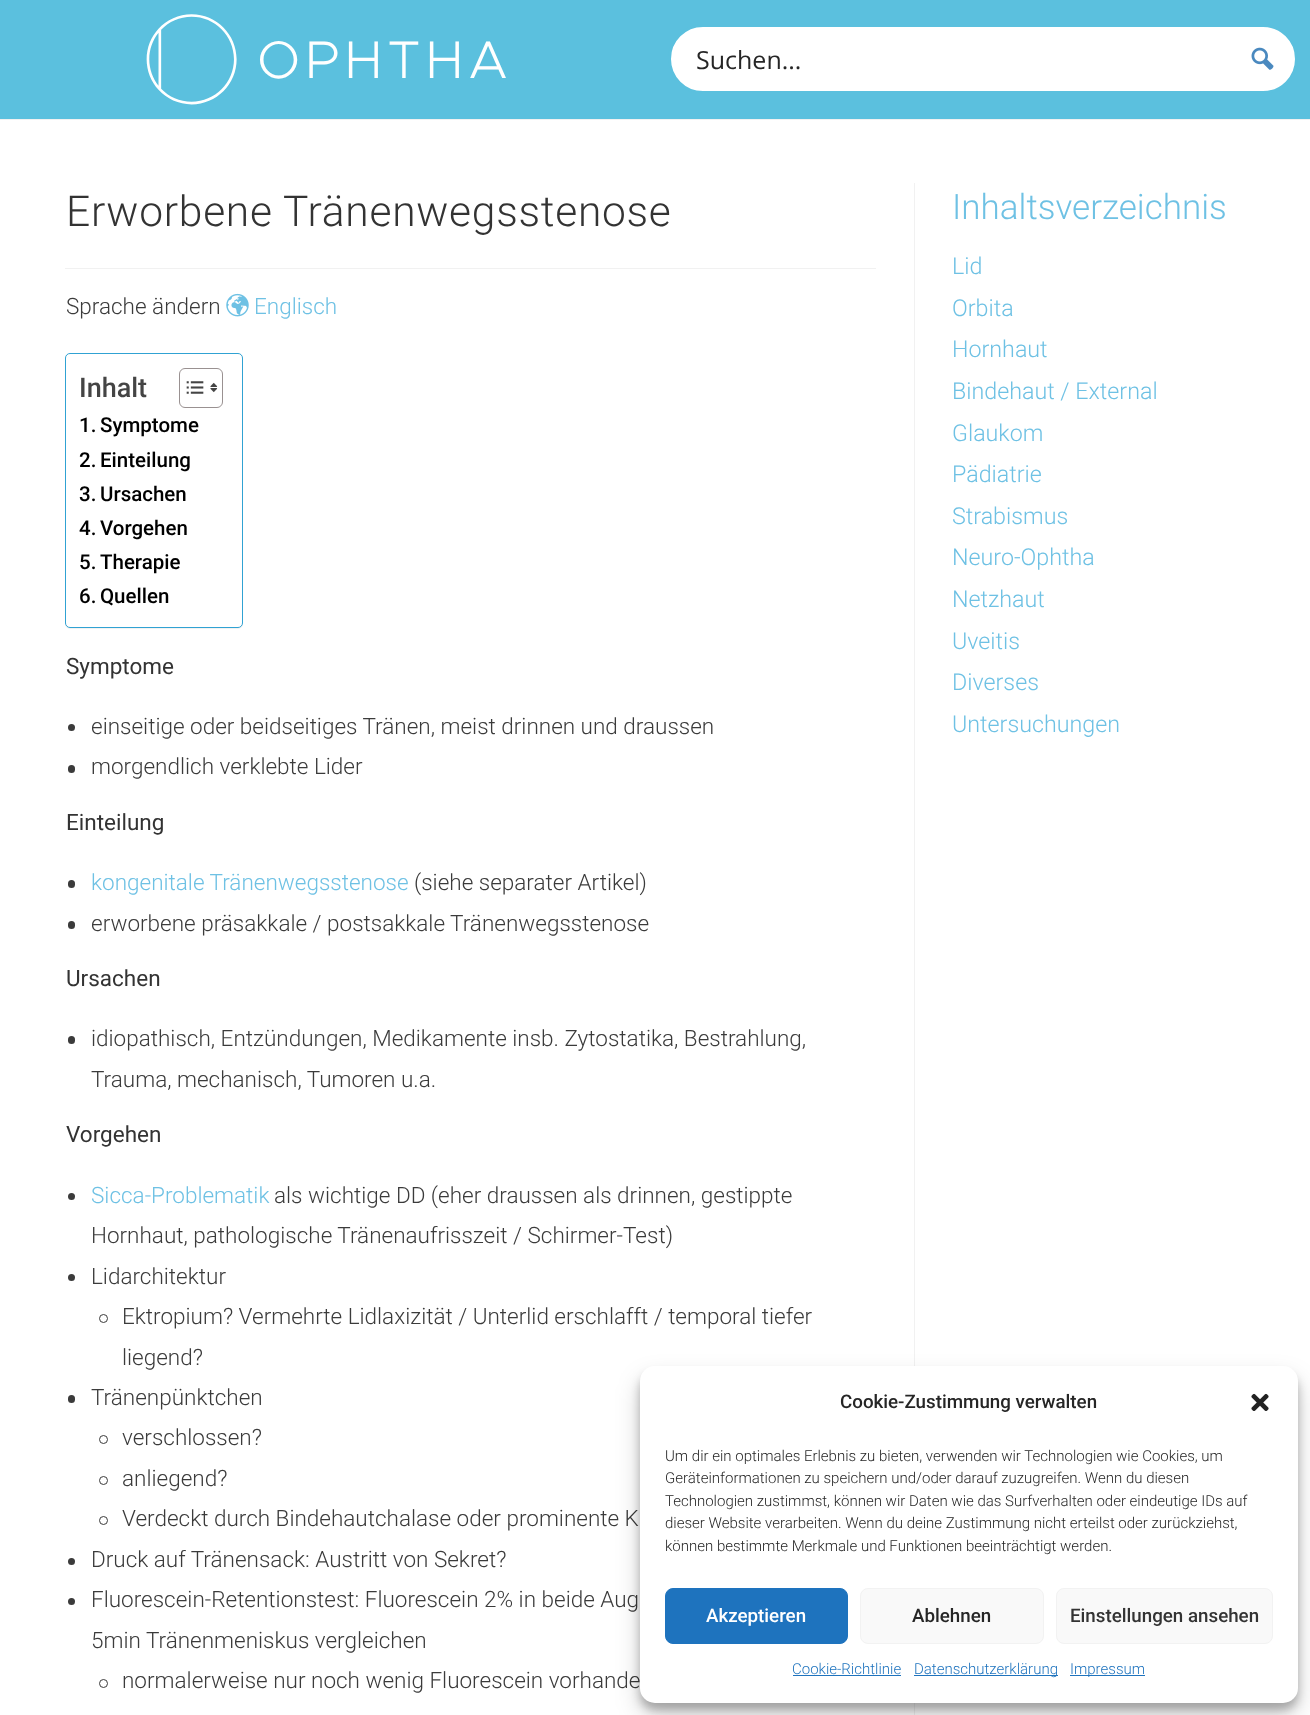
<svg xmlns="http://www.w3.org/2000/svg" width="1310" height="1715">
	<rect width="100%" height="100%" fill="#FFFFFF" />
	<rect x="0" y="119" width="1310" height="1" fill="#F1F1F1" />
	<rect x="0" y="0" width="1310" height="119" fill="#5BC0DE" />
	<image x="146" y="14" width="360" height="91" href="assets/img1.png" />
	<rect x="669.5" y="25.5" width="627" height="67" rx="33.5" fill="#FFFFFF" stroke="#5BC0DE" stroke-width="3" />
	<text x="696" y="69" font-family="Open Sans" font-size="25" fill="#262626">Suchen...</text>
	<image x="1251" y="47" width="23" height="23" href="assets/img2.png" />
	<rect x="914" y="183" width="1" height="1532" fill="#F1F1F1" />
	<rect x="65" y="268" width="811" height="1" fill="#F1F1F1" />
	<text x="66" y="226" font-family="Roboto" font-size="42.5" font-weight="300" letter-spacing="0.75" fill="#333333">Erworbene Tränenwegsstenose</text>
	<text x="66" y="314" font-family="Roboto" font-size="22.5" font-weight="300" fill="#3B3B3B">Sprache ändern</text>
	<image x="226" y="293" width="23" height="24" href="assets/img3.png" />
	<text x="254" y="314" font-family="Roboto" font-size="22.5" font-weight="300" fill="#6EC1E4">Englisch</text>
	<rect x="65" y="354" width="178" height="275" rx="5" fill="#000000" fill-opacity="0.05" filter="blur(0.5px)" />
	<rect x="65.5" y="353.5" width="177" height="274" rx="4.5" fill="#FFFFFF" stroke="#30A2D3" />
	<text x="79" y="397" font-family="Roboto" font-size="27" font-weight="500" fill="#444444">Inhalt</text>
	<rect x="179.5" y="368.5" width="43" height="39" rx="5.5" fill="none" stroke="#999191" />
	<image x="186" y="381" width="18" height="13" href="assets/img4.png" />
	<image x="210" y="382" width="8" height="11" href="assets/img5.png" />
	<g font-family="Roboto" font-size="20.5" font-weight="500" fill="#000000">
		<text x="79" y="432">1.</text>
		<text x="100" y="432">Symptome</text>
		<text x="79" y="467">2.</text>
		<text x="100" y="467">Einteilung</text>
		<text x="79" y="501">3.</text>
		<text x="100" y="501">Ursachen</text>
		<text x="79" y="535">4.</text>
		<text x="100" y="535">Vorgehen</text>
		<text x="79" y="569">5.</text>
		<text x="100" y="569">Therapie</text>
		<text x="79" y="603">6.</text>
		<text x="100" y="603">Quellen</text>
	</g>
	<text x="66" y="674" font-family="Roboto" font-size="22.5" fill="#333333">Symptome</text>
	<circle cx="71.5" cy="727.5" r="3.5" fill="#3B3B3B" />
	<text x="91" y="734" font-family="Roboto" font-size="22.5" font-weight="300" fill="#3B3B3B">einseitige oder beidseitiges Tränen, meist drinnen und draussen</text>
	<rect x="68" y="765" width="7" height="8" rx="3.5" fill="#3B3B3B" />
	<text x="91" y="774" font-family="Roboto" font-size="22.5" font-weight="300" fill="#3B3B3B">morgendlich verklebte Lider</text>
	<text x="66" y="830" font-family="Roboto" font-size="22.5" fill="#333333">Einteilung</text>
	<rect x="68" y="880" width="7" height="8" rx="3.5" fill="#3B3B3B" />
	<text x="91" y="890" font-family="Roboto" font-size="22.5" font-weight="300" fill="#6EC1E4">kongenitale Tränenwegsstenose</text>
	<text x="414" y="890" font-family="Roboto" font-size="22.5" font-weight="300" fill="#3B3B3B">(siehe separater Artikel)</text>
	<rect x="68" y="921" width="7" height="8" rx="3.5" fill="#3B3B3B" />
	<text x="91" y="931" font-family="Roboto" font-size="22.5" font-weight="300" fill="#3B3B3B">erworbene präsakkale / postsakkale Tränenwegsstenose</text>
	<text x="66" y="986" font-family="Roboto" font-size="22.5" fill="#333333">Ursachen</text>
	<rect x="68" y="1036" width="7" height="8" rx="3.5" fill="#3B3B3B" />
	<g font-family="Roboto" font-size="22.5" font-weight="300" fill="#3B3B3B">
		<text x="91" y="1046">idiopathisch, Entzündungen, Medikamente insb. Zytostatika, Bestrahlung,</text>
		<text x="91" y="1087">Trauma, mechanisch, Tumoren u.a.</text>
	</g>
	<text x="66" y="1142" font-family="Roboto" font-size="22.5" fill="#333333">Vorgehen</text>
	<circle cx="71.5" cy="1196.5" r="3.5" fill="#3B3B3B" />
	<text x="91" y="1203" font-family="Roboto" font-size="22.5" font-weight="300" fill="#6EC1E4">Sicca-Problematik</text>
	<g font-family="Roboto" font-size="22.5" font-weight="300" fill="#3B3B3B">
		<text x="274" y="1203">als wichtige DD (eher draussen als drinnen, gestippte</text>
		<text x="91" y="1243">Hornhaut, pathologische Tränenaufrisszeit / Schirmer-Test)</text>
	</g>
	<circle cx="71.5" cy="1277.5" r="3.5" fill="#3B3B3B" />
	<text x="91" y="1284" font-family="Roboto" font-size="22.5" font-weight="300" fill="#3B3B3B">Lidarchitektur</text>
	<circle cx="103.5" cy="1318.5" r="4" fill="none" stroke="#3B3B3B" />
	<g font-family="Roboto" font-size="22.5" font-weight="300" fill="#3B3B3B">
		<text x="122" y="1324">Ektropium? Vermehrte Lidlaxizität / Unterlid erschlafft / temporal tiefer</text>
		<text x="122" y="1365">liegend?</text>
	</g>
	<rect x="68" y="1395" width="7" height="8" rx="3.5" fill="#3B3B3B" />
	<text x="91" y="1405" font-family="Roboto" font-size="22.5" font-weight="300" fill="#3B3B3B">Tränenpünktchen</text>
	<circle cx="103.5" cy="1439.5" r="4" fill="none" stroke="#3B3B3B" />
	<text x="122" y="1445" font-family="Roboto" font-size="22.5" font-weight="300" fill="#3B3B3B">verschlossen?</text>
	<circle cx="103.5" cy="1480.5" r="4" fill="none" stroke="#3B3B3B" />
	<text x="122" y="1486" font-family="Roboto" font-size="22.5" font-weight="300" fill="#3B3B3B">anliegend?</text>
	<circle cx="103.5" cy="1520.5" r="4" fill="none" stroke="#3B3B3B" />
	<text x="122" y="1526" font-family="Roboto" font-size="22.5" font-weight="300" fill="#3B3B3B">Verdeckt durch Bindehautchalase oder prominente K</text>
	<circle cx="71.5" cy="1561.5" r="3.5" fill="#3B3B3B" />
	<text x="91" y="1567" font-family="Roboto" font-size="22.5" font-weight="300" fill="#3B3B3B">Druck auf Tränensack: Austritt von Sekret?</text>
	<circle cx="71.5" cy="1601.5" r="3.5" fill="#3B3B3B" />
	<g font-family="Roboto" font-size="22.5" font-weight="300" fill="#3B3B3B">
		<text x="91" y="1607">Fluorescein-Retentionstest: Fluorescein 2% in beide Aug</text>
		<text x="91" y="1648">5min Tränenmeniskus vergleichen</text>
	</g>
	<circle cx="103.5" cy="1683.5" r="4" fill="none" stroke="#3B3B3B" />
	<text x="122" y="1688" font-family="Roboto" font-size="22.5" font-weight="300" fill="#3B3B3B">normalerweise nur noch wenig Fluorescein vorhande</text>
	<text x="952" y="219" font-family="Roboto" font-size="35" font-weight="300" fill="#6EC1E4">Inhaltsverzeichnis</text>
	<g font-family="Roboto" font-size="23.25" font-weight="300" fill="#6EC1E4">
		<text x="952" y="274">Lid</text>
		<text x="952" y="316">Orbita</text>
		<text x="952" y="357">Hornhaut</text>
		<text x="952" y="399">Bindehaut / External</text>
		<text x="952" y="441">Glaukom</text>
		<text x="952" y="482">Pädiatrie</text>
		<text x="952" y="524">Strabismus</text>
		<text x="952" y="565">Neuro-Ophtha</text>
		<text x="952" y="607">Netzhaut</text>
		<text x="952" y="649">Uveitis</text>
		<text x="952" y="690">Diverses</text>
		<text x="952" y="732">Untersuchungen</text>
	</g>
	<rect x="640" y="1374" width="658" height="336" rx="15" fill="#000000" fill-opacity="0.23" filter="blur(4px)" />
	<rect x="640" y="1379" width="658" height="336" rx="15" fill="#000000" fill-opacity="0.19" filter="blur(12.5px)" />
	<rect x="640" y="1366" width="658" height="337" rx="15" fill="#FFFFFF" />
	<text x="840" y="1408" font-family="Roboto" font-size="18.75" font-weight="500" fill="#262626">Cookie-Zustimmung verwalten</text>
	<image x="1251" y="1393" width="18" height="18" href="assets/img6.png" />
	<g font-family="Roboto" font-size="15" font-weight="300" fill="#262626">
		<text x="665" y="1461">Um dir ein optimales Erlebnis zu bieten, verwenden wir Technologien wie Cookies, um</text>
		<text x="665" y="1483">Geräteinformationen zu speichern und/oder darauf zuzugreifen. Wenn du diesen</text>
		<text x="665" y="1506">Technologien zustimmst, können wir Daten wie das Surfverhalten oder eindeutige IDs auf</text>
		<text x="665" y="1528">dieser Website verarbeiten. Wenn du deine Zustimmung nicht erteilst oder zurückziehst,</text>
		<text x="665" y="1551">können bestimmte Merkmale und Funktionen beeinträchtigt werden.</text>
	</g>
	<rect x="665.5" y="1588.5" width="182" height="55" rx="7.5" fill="#1E73BE" stroke="#1E73BE" />
	<text x="706" y="1622" font-family="Roboto" font-size="18.75" font-weight="500" fill="#FFFFFF">Akzeptieren</text>
	<rect x="860.5" y="1588.5" width="183" height="55" rx="7.5" fill="#F9F9F9" stroke="#F2F2F2" />
	<text x="912" y="1622" font-family="Roboto" font-size="18.75" font-weight="500" fill="#262626">Ablehnen</text>
	<rect x="1056.5" y="1588.5" width="216" height="55" rx="7.5" fill="#F9F9F9" stroke="#F2F2F2" />
	<text x="1070" y="1622" font-family="Roboto" font-size="18.75" font-weight="500" fill="#333333">Einstellungen ansehen</text>
	<text x="792" y="1674" font-family="Roboto" font-size="15" font-weight="300" fill="#1E73BE">Cookie-Richtlinie</text>
	<rect x="793" y="1675" width="108" height="1" fill="#1E73BE" />
	<rect x="914" y="1675" width="144" height="1" fill="#1E73BE" />
	<text x="914" y="1674" font-family="Roboto" font-size="15" font-weight="300" fill="#1E73BE">Datenschutzerklärung</text>
	<rect x="1070" y="1675" width="75" height="1" fill="#1E73BE" />
	<text x="1070" y="1674" font-family="Roboto" font-size="15" font-weight="300" fill="#1E73BE">Impressum</text>
</svg>
